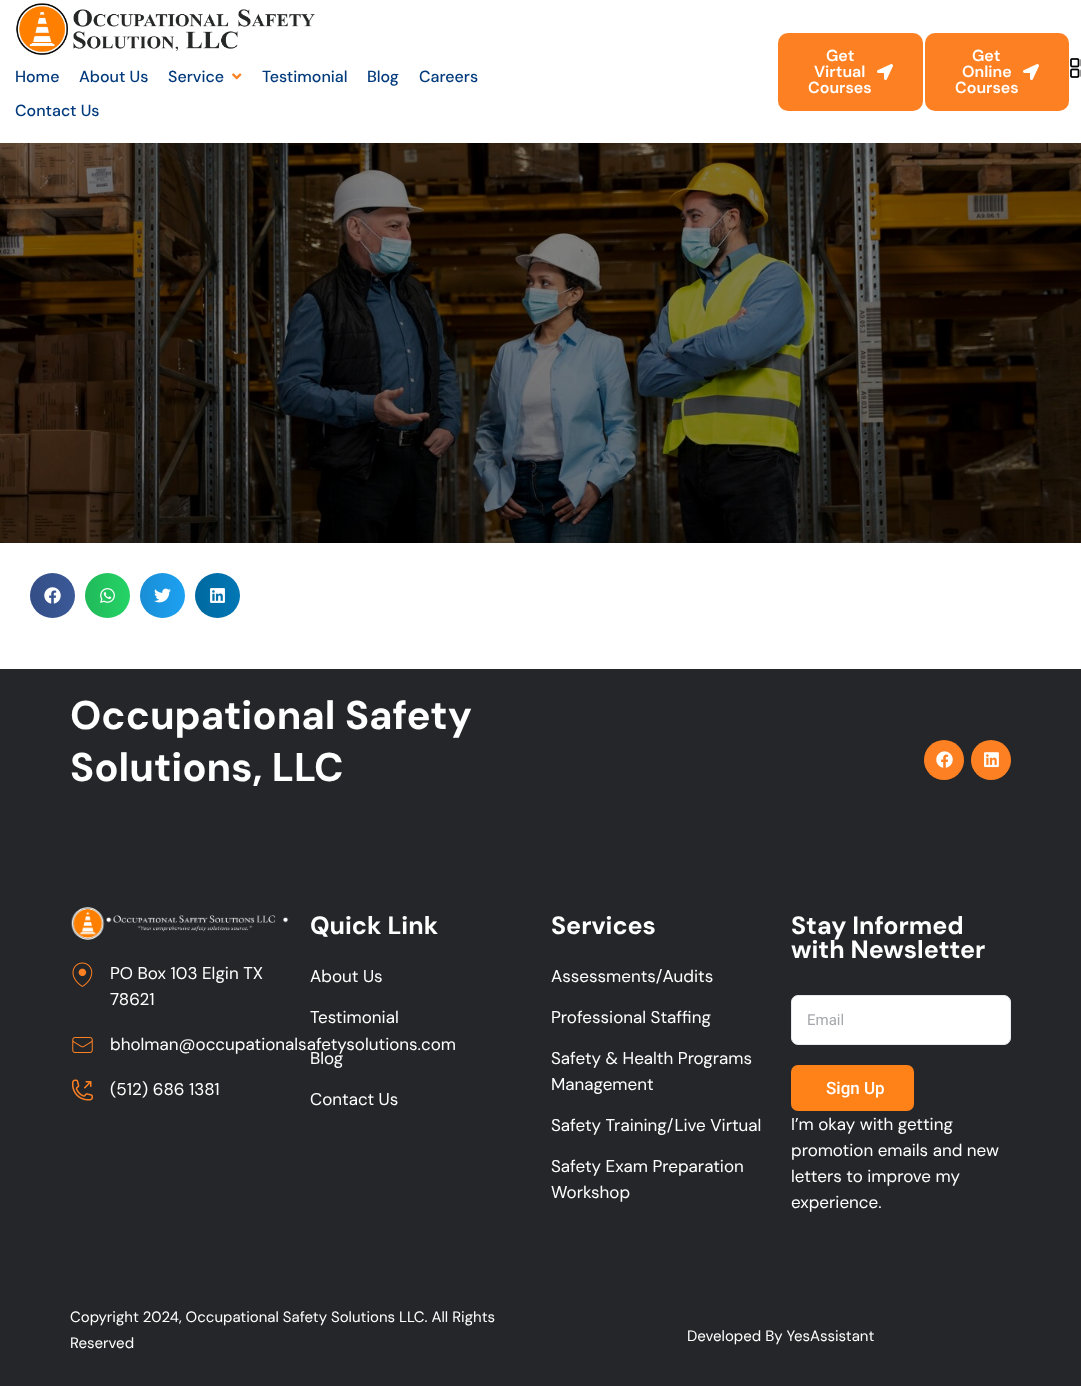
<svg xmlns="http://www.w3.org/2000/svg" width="1081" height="1386">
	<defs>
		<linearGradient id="g1" gradientUnits="userSpaceOnUse" x1="30" y1="596" x2="75" y2="596"><stop offset="0" stop-color="#000000" stop-opacity="0.12" /><stop offset="1" stop-color="#000000" stop-opacity="0" /></linearGradient>
		<linearGradient id="g2" gradientUnits="userSpaceOnUse" x1="85" y1="596" x2="130" y2="596"><stop offset="0" stop-color="#000000" stop-opacity="0.12" /><stop offset="1" stop-color="#000000" stop-opacity="0" /></linearGradient>
		<linearGradient id="g3" gradientUnits="userSpaceOnUse" x1="140" y1="596" x2="185" y2="596"><stop offset="0" stop-color="#000000" stop-opacity="0.12" /><stop offset="1" stop-color="#000000" stop-opacity="0" /></linearGradient>
		<linearGradient id="g4" gradientUnits="userSpaceOnUse" x1="195" y1="596" x2="240" y2="596"><stop offset="0" stop-color="#000000" stop-opacity="0.12" /><stop offset="1" stop-color="#000000" stop-opacity="0" /></linearGradient>
	</defs>
	<rect width="100%" height="100%" fill="#FFFFFF" />
	<image x="16" y="3" width="299" height="52" href="assets/img1.png" />
	<g font-family="DM Sans" font-size="16" font-weight="500" fill="#003A7C">
		<text x="15" y="82">Home</text>
		<text x="79" y="82">About Us</text>
		<text x="168" y="82">Service</text>
	</g>
	<image x="232" y="73" width="10" height="7" href="assets/img2.png" />
	<g font-family="DM Sans" font-size="16" font-weight="500" fill="#003A7C">
		<text x="262" y="82">Testimonial</text>
		<text x="367" y="82">Blog</text>
		<text x="419" y="82">Careers</text>
		<text x="15" y="116">Contact Us</text>
	</g>
	<rect x="778" y="33" width="145" height="78" rx="10" fill="#FD8023" />
	<g font-family="DM Sans" font-size="16" font-weight="600" fill="#FFFFFF">
		<text x="826" y="61">Get</text>
		<text x="814" y="77">Virtual</text>
		<text x="808" y="93">Courses</text>
	</g>
	<image x="877" y="64" width="16" height="16" href="assets/img3.png" />
	<rect x="925" y="33" width="144" height="78" rx="10" fill="#FD8023" />
	<g font-family="DM Sans" font-size="16" font-weight="600" fill="#FFFFFF">
		<text x="972" y="61">Get</text>
		<text x="962" y="77">Online</text>
		<text x="955" y="93">Courses</text>
	</g>
	<image x="1023" y="64" width="16" height="16" href="assets/img3.png" />
	<image x="1070" y="58" width="11" height="20" href="assets/img4.png" />
	<image x="0" y="143" width="1081" height="400" href="assets/img5.png" />
	<circle cx="52.5" cy="595.5" r="22.5" fill="#3B5998" />
	<circle cx="52.5" cy="595.5" r="22.5" fill="url(#g1)" />
	<image x="44" y="587" width="17" height="17" href="assets/img6.png" />
	<circle cx="107.5" cy="595.5" r="22.5" fill="#25D366" />
	<circle cx="107.5" cy="595.5" r="22.5" fill="url(#g2)" />
	<image x="100" y="588" width="15" height="15" href="assets/img7.png" />
	<circle cx="162.5" cy="595.5" r="22.5" fill="#1DA1F2" />
	<circle cx="162.5" cy="595.5" r="22.5" fill="url(#g3)" />
	<image x="154" y="588" width="17" height="15" href="assets/img8.png" />
	<circle cx="217.5" cy="595.5" r="22.5" fill="#0077B5" />
	<circle cx="217.5" cy="595.5" r="22.5" fill="url(#g4)" />
	<image x="210" y="588" width="15" height="15" href="assets/img9.png" />
	<rect x="0" y="669" width="1081" height="717" fill="#242629" />
	<g font-family="DM Sans" font-size="40" font-weight="700" fill="#FFFFFF">
		<text x="70" y="729">Occupational Safety</text>
		<text x="70" y="781">Solutions, LLC</text>
	</g>
	<circle cx="944" cy="760" r="20" fill="#FD8023" />
	<image x="936" y="751" width="17" height="17" href="assets/img10.png" />
	<circle cx="991" cy="760" r="20" fill="#FD8023" />
	<image x="984" y="752" width="15" height="16" href="assets/img11.png" />
	<text x="310" y="934" font-family="DM Sans" font-size="25" font-weight="700" fill="#FFFFFF">Quick Link</text>
	<g font-family="DM Sans" font-size="17" fill="#FFFFFF">
		<text x="310" y="982">About Us</text>
		<text x="310" y="1023">Testimonial</text>
		<text x="310" y="1064">Blog</text>
		<text x="310" y="1105">Contact Us</text>
	</g>
	<text x="551" y="934" font-family="DM Sans" font-size="25" font-weight="700" fill="#FFFFFF">Services</text>
	<g font-family="DM Sans" font-size="17" fill="#FFFFFF">
		<text x="551" y="982">Assessments/Audits</text>
		<text x="551" y="1023">Professional Staffing</text>
		<text x="551" y="1064">Safety &amp; Health Programs</text>
		<text x="551" y="1090">Management</text>
		<text x="551" y="1131">Safety Training/Live Virtual</text>
		<text x="551" y="1172">Safety Exam Preparation</text>
		<text x="551" y="1198">Workshop</text>
	</g>
	<g font-family="DM Sans" font-size="25" font-weight="700" fill="#FFFFFF">
		<text x="791" y="934">Stay Informed</text>
		<text x="791" y="958">with Newsletter</text>
	</g>
	<rect x="791.5" y="995.5" width="219" height="49" rx="6.5" fill="#FFFFFF" stroke="#E7EBF0" />
	<text x="807" y="1025" font-family="Roboto" font-size="15" fill="#A5A8AD">Email</text>
	<rect x="791" y="1065" width="123" height="46" rx="7" fill="#FF8219" />
	<text x="826" y="1094" font-family="Roboto" font-size="17" font-weight="500" fill="#FFFFFF">Sign Up</text>
	<g font-family="DM Sans" font-size="17" fill="#FFFFFF">
		<text x="791" y="1130">I’m okay with getting</text>
		<text x="791" y="1156">promotion emails and new</text>
		<text x="791" y="1182">letters to improve my</text>
		<text x="791" y="1208">experience.</text>
	</g>
	<image x="71" y="907" width="218" height="33" href="assets/img12.png" />
	<image x="72" y="962" width="21" height="25" href="assets/img13.png" />
	<g font-family="DM Sans" font-size="17" fill="#FFFFFF">
		<text x="110" y="979">PO Box 103 Elgin TX</text>
		<text x="110" y="1005">78621</text>
	</g>
	<image x="72" y="1037" width="21" height="16" href="assets/img14.png" />
	<text x="110" y="1050" font-family="DM Sans" font-size="17" fill="#FFFFFF">bholman@occupationalsafetysolutions.com</text>
	<image x="72" y="1079" width="21" height="22" href="assets/img15.png" />
	<text x="110" y="1095" font-family="DM Sans" font-size="17" fill="#FFFFFF">(512) 686 1381</text>
	<g font-family="DM Sans" font-size="15" fill="#FFFFFF">
		<text x="70" y="1322">Copyright 2024, Occupational Safety Solutions LLC. All Rights</text>
		<text x="70" y="1348">Reserved</text>
		<text x="687" y="1341">Developed By YesAssistant</text>
	</g>
</svg>
